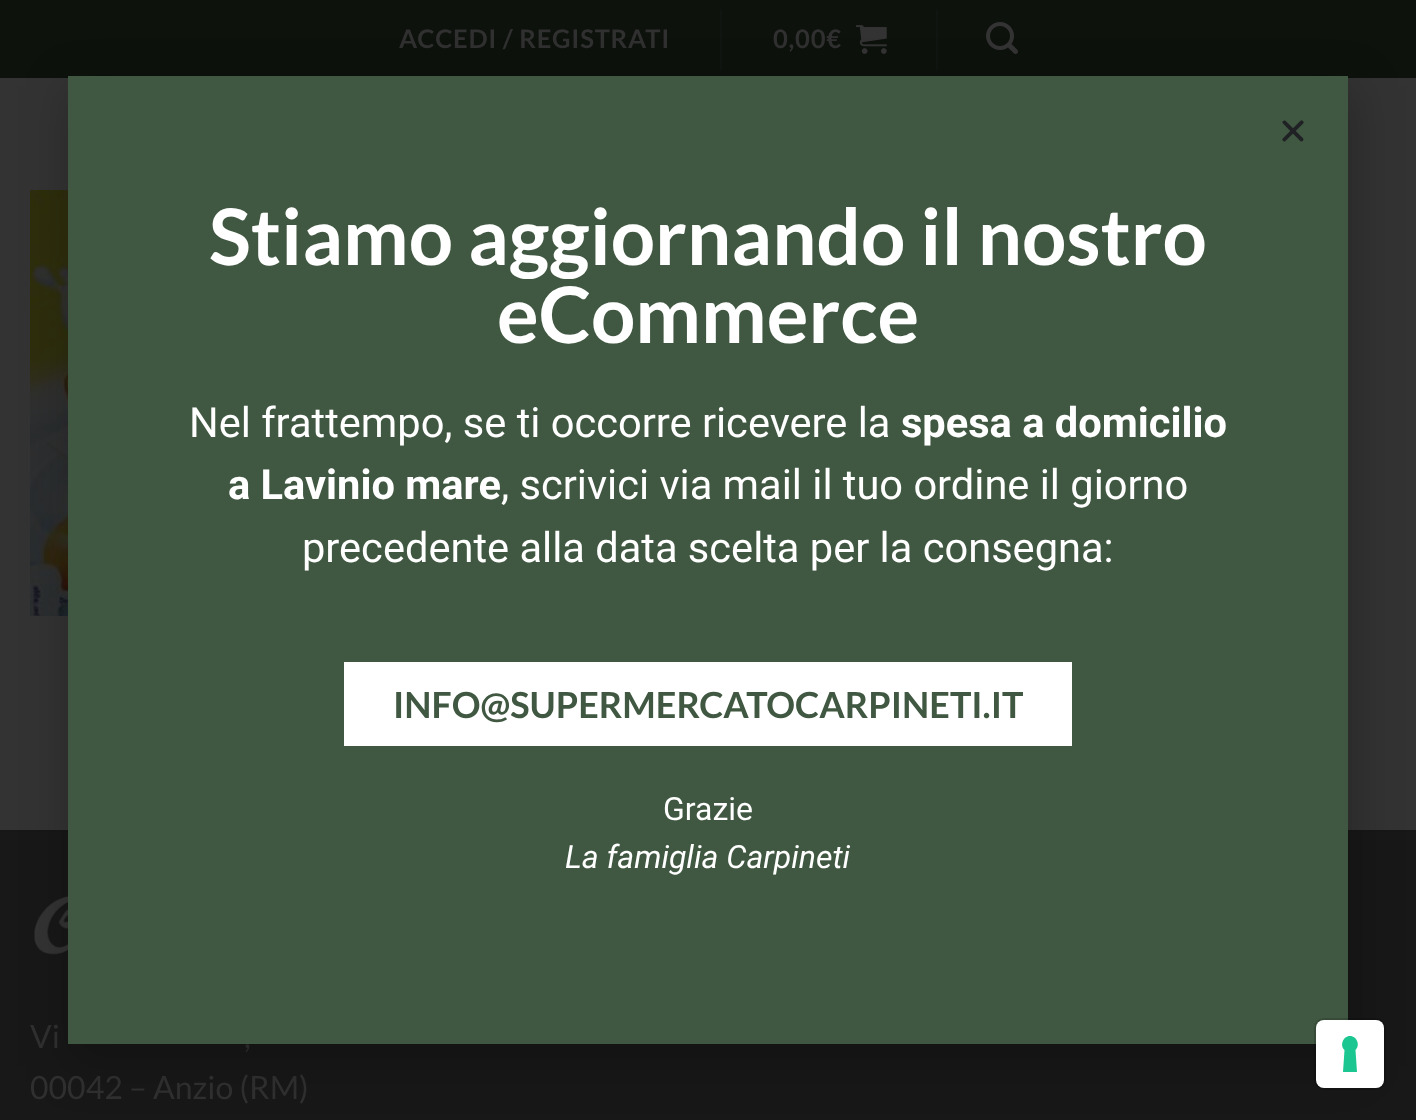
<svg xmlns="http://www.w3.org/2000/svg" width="1416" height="1120">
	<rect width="100%" height="100%" fill="#333333" />
	<rect x="0" y="0" width="1416" height="78" fill="#0D120D" />
	<text x="399" y="48" font-family="Lato" font-size="25.6" font-weight="700" letter-spacing="0.75" fill="#303030">ACCEDI / REGISTRATI</text>
	<rect x="720" y="10" width="2" height="60" fill="#111511" />
	<text x="773" y="48" font-family="Lato" font-size="25.6" font-weight="700" letter-spacing="0.75" fill="#303030">0,00€</text>
	<image x="856" y="25" width="31" height="29" href="assets/img1.png" />
	<rect x="936" y="10" width="2" height="60" fill="#111511" />
	<image x="986" y="22" width="32" height="32" href="assets/img2.png" />
	<image x="30" y="190" width="38" height="426" href="assets/img3.png" />
	<rect x="0" y="832" width="1416" height="288" fill="#181818" />
	<rect x="0" y="830" width="1416" height="2" fill="#171717" />
	<image x="34" y="896" width="34" height="59" href="assets/img4.png" />
	<g font-family="Lato" font-size="32" fill="#303030">
		<text x="30" y="1048">Vi</text>
		<text x="244" y="1048">,</text>
		<text x="30" y="1099">00042 – Anzio (RM)</text>
	</g>
	<rect x="66" y="86" width="1292" height="980" fill="#000000" fill-opacity="0.2" filter="blur(23px)" />
	<rect x="68" y="76" width="1280" height="968" fill="#405841" />
	<image x="1282" y="120" width="22" height="22" href="assets/img5.png" />
	<g font-family="Lato" font-size="78" font-weight="700" fill="#FFFFFF">
		<text x="209" y="265">Stiamo aggiornando il nostro</text>
		<text x="497" y="343">eCommerce</text>
	</g>
	<text x="189" y="437" font-family="Roboto" font-size="41.6" fill="#FFFFFF">Nel frattempo, se ti occorre ricevere la</text>
	<g font-family="Roboto" font-size="41.6" font-weight="700" fill="#FFFFFF">
		<text x="901" y="437">spesa a domicilio</text>
		<text x="228" y="499">a Lavinio mare</text>
	</g>
	<g font-family="Roboto" font-size="41.6" fill="#FFFFFF">
		<text x="501" y="499">, scrivici via mail il tuo ordine il giorno</text>
		<text x="302" y="562">precedente alla data scelta per la consegna:</text>
	</g>
	<rect x="344" y="662" width="728" height="84" fill="#FFFFFF" />
	<text x="393" y="718" font-family="Lato" font-size="36" font-weight="700" fill="#405841">INFO@SUPERMERCATOCARPINETI.IT</text>
	<text x="663" y="820" font-family="Roboto" font-size="32" fill="#FFFFFF">Grazie</text>
	<text x="565" y="868" font-family="Roboto" font-size="32" font-style="italic" fill="#FFFFFF">La famiglia Carpineti</text>
	<rect x="1315" y="1019" width="70" height="70" rx="9" fill="none" stroke="#000000" stroke-opacity="0.15" stroke-width="2" />
	<rect x="1316" y="1020" width="68" height="68" rx="8" fill="#FFFFFF" />
	<path d="M1350 1036C1357 1036 1360.5 1045.5 1355.5 1050L1357 1072H1343L1344.5 1050C1339.5 1045.5 1343 1036 1350 1036Z" fill="#1CC691" fill-rule="evenodd" />
</svg>
